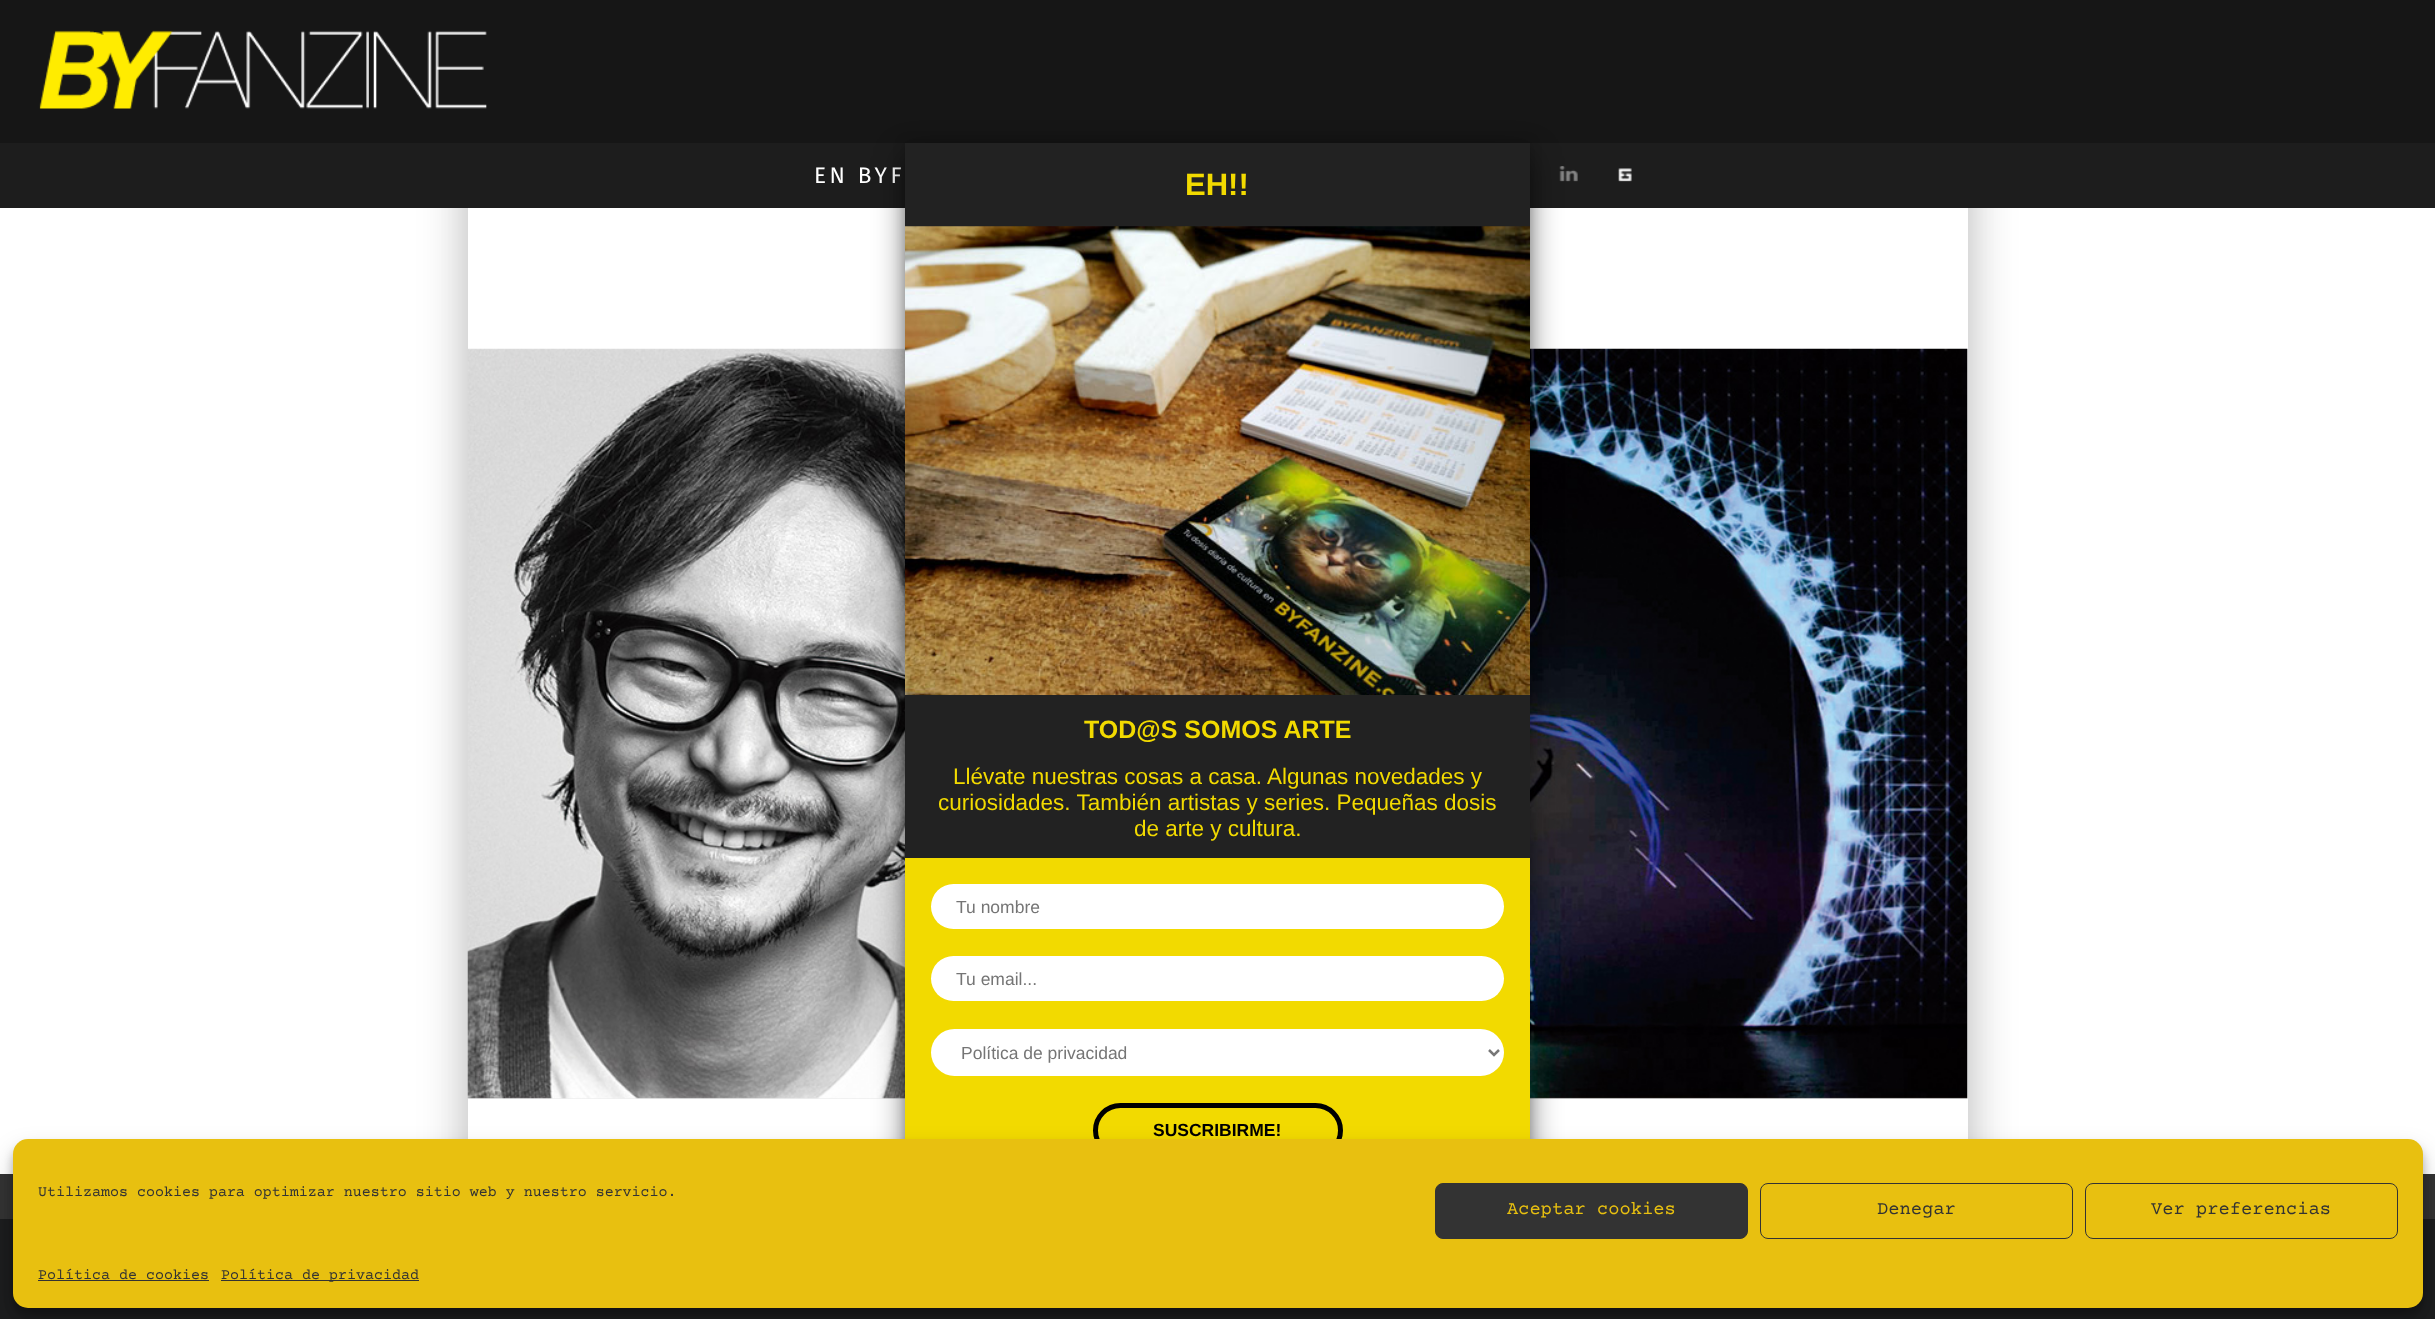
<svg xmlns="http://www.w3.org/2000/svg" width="2435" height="1319">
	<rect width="100%" height="100%" fill="#FFFFFF" />
	<rect x="455" y="0" width="1500" height="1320" fill="#000000" fill-opacity="0.15" filter="blur(19px)" />
	<rect x="480" y="0" width="1500" height="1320" fill="#000000" fill-opacity="0.15" filter="blur(19px)" />
	<rect x="0" y="0" width="2435" height="143" fill="#161616" />
	<image x="39" y="30" width="448" height="79" href="assets/img1.png" />
	<rect x="0" y="143" width="2435" height="65" fill="#1D1D1D" />
	<text x="814" y="183" font-family="Fira Sans" font-size="22.5" letter-spacing="3.5" fill="#FFFFFF">EN BYF</text>
	<image x="1559" y="166" width="19" height="16" href="assets/img2.png" />
	<image x="1618" y="168" width="14" height="14" href="assets/img3.png" />
	<rect x="468" y="208" width="1500" height="931" fill="#FFFFFF" />
	<rect x="468" y="349" width="1500" height="750" fill="#EEEEEE" />
	<image x="467" y="348" width="1501" height="751" href="assets/img4.png" />
	<rect x="0" y="1219" width="2435" height="100" fill="#1C1D1E" />
	<rect x="0" y="1174" width="2435" height="45" fill="#333333" />
	<rect x="905" y="155" width="625" height="1034" rx="5" fill="#000000" fill-opacity="0.5" filter="blur(15.5px)" />
	<rect x="905" y="143" width="625" height="1033" fill="#000000" fill-opacity="0.2" filter="blur(6px)" />
	<rect x="905" y="143" width="625" height="715" fill="#222222" />
	<text x="1185" y="195" font-family="Liberation Sans" font-size="31" font-weight="700" fill="#F2DA00">EH!!</text>
	<image x="905" y="226" width="625" height="469" href="assets/img5.png" />
	<text x="1084" y="738" font-family="Liberation Sans" font-size="25" font-weight="700" fill="#F2DA00">TOD@S SOMOS ARTE</text>
	<g font-family="Liberation Sans" font-size="22.5" fill="#F2DA00">
		<text x="953" y="784">Llévate nuestras cosas a casa. Algunas novedades y</text>
		<text x="938" y="810">curiosidades. También artistas y series. Pequeñas dosis</text>
		<text x="1134" y="836">de arte y cultura.</text>
	</g>
	<rect x="905" y="858" width="625" height="281" fill="#F2DA00" />
	<rect x="931" y="884" width="573" height="45" rx="22.5" fill="#FFFFFF" />
	<text x="956" y="913" font-family="Liberation Sans" font-size="17.5" fill="#757575">Tu nombre</text>
	<rect x="931" y="956" width="573" height="45" rx="22.5" fill="#FFFFFF" />
	<text x="956" y="985" font-family="Liberation Sans" font-size="17.5" fill="#757575">Tu email...</text>
	<rect x="931" y="1029" width="573" height="47" rx="23.5" fill="#FFFFFF" />
	<path d="M1489 1050L1494 1055L1499 1050" fill="none" stroke="#777777" stroke-width="2.5" />
	<text x="961" y="1059" font-family="Liberation Sans" font-size="17.5" fill="#757575">Política de privacidad</text>
	<rect x="1095.5" y="1105.5" width="245" height="50" rx="25" fill="none" stroke="#000000" stroke-width="5" />
	<text x="1153" y="1136" font-family="Liberation Sans" font-size="17.5" font-weight="700" fill="#000000">SUSCRIBIRME!</text>
	<rect x="13" y="1146" width="2410" height="169" rx="15" fill="#000000" fill-opacity="0.23" filter="blur(4px)" />
	<rect x="13" y="1151" width="2410" height="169" rx="15" fill="#000000" fill-opacity="0.19" filter="blur(12.5px)" />
	<rect x="13" y="1139" width="2410" height="169" rx="15" fill="#E8C010" />
	<text x="38" y="1196" font-family="Courier Prime" font-size="15" fill="#333333">Utilizamos cookies para optimizar nuestro sitio web y nuestro servicio.</text>
	<rect x="1435.5" y="1183.5" width="312" height="55" rx="7.5" fill="#333333" stroke="#333333" />
	<text x="1507" y="1214" font-family="Courier Prime" font-size="18.75" fill="#E8C010">Aceptar cookies</text>
	<rect x="1760.5" y="1183.5" width="312" height="55" rx="7.5" fill="none" stroke="#333333" />
	<text x="1877" y="1214" font-family="Courier Prime" font-size="18.75" fill="#333333">Denegar</text>
	<rect x="2085.5" y="1183.5" width="312" height="55" rx="7.5" fill="none" stroke="#333333" />
	<text x="2151" y="1214" font-family="Courier Prime" font-size="18.75" fill="#333333">Ver preferencias</text>
	<text x="38" y="1279" font-family="Courier Prime" font-size="15" fill="#333333">Política de cookies</text>
	<rect x="38" y="1280" width="171" height="1" fill="#333333" />
	<rect x="221" y="1280" width="198" height="1" fill="#333333" />
	<text x="221" y="1279" font-family="Courier Prime" font-size="15" fill="#333333">Política de privacidad</text>
</svg>
